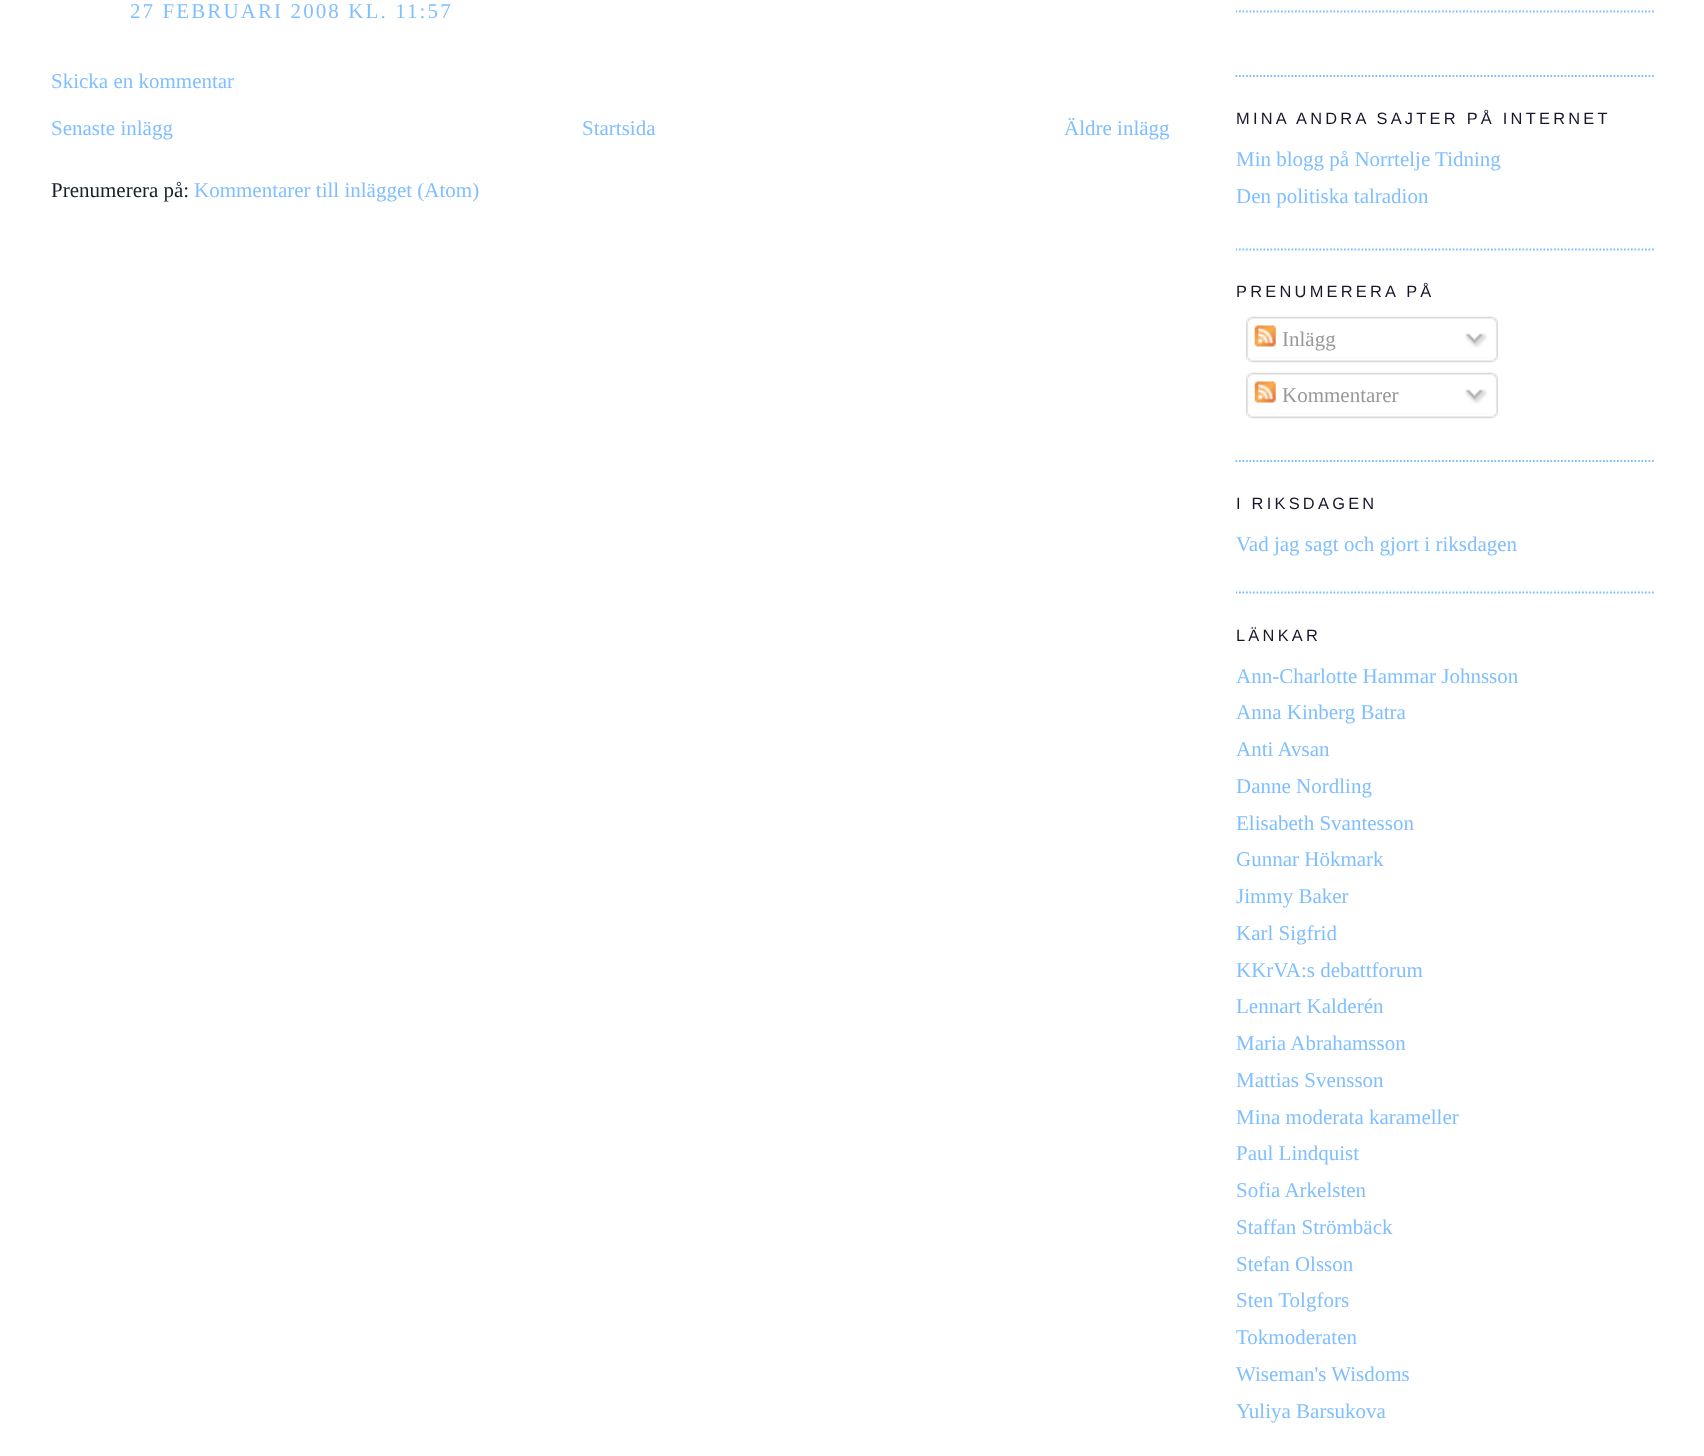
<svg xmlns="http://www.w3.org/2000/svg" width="1704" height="1456">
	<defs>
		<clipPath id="clip1"><rect x="1236" y="0" width="418" height="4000" /></clipPath>
	</defs>
	<rect width="100%" height="100%" fill="#FFFFFF" />
	<text x="130" y="18" font-family="Liberation Serif" font-size="21" letter-spacing="2.1" fill="#80BFFF">27 FEBRUARI 2008 KL. 11:57</text>
	<g font-family="Liberation Serif" font-size="21" fill="#80BFFF">
		<text x="51" y="88">Skicka en kommentar</text>
		<text x="51" y="135">Senaste inlägg</text>
		<text x="582" y="135">Startsida</text>
		<text x="1064" y="135">Äldre inlägg</text>
	</g>
	<text x="51" y="197" font-family="Liberation Serif" font-size="21" fill="#15222B">Prenumerera på:</text>
	<text x="194" y="197" font-family="Liberation Serif" font-size="21" fill="#80BFFF">Kommentarer till inlägget (Atom)</text>
	<g clip-path="url(#clip1)">
		<path d="M1235.5 11.5H1654" fill="none" stroke="#80BFFF" stroke-width="1.8" stroke-dasharray="1.75 1.75" />
	</g>
	<path d="M1235.5 76H1654" fill="none" stroke="#80BFFF" stroke-width="1.8" stroke-dasharray="1.75 1.75" />
	<g clip-path="url(#clip1)">
		<path d="M1235.5 249.5H1654" fill="none" stroke="#80BFFF" stroke-width="1.8" stroke-dasharray="1.75 1.75" />
	</g>
	<text x="1236" y="124" font-family="Liberation Sans" font-size="16.4" letter-spacing="3.25" fill="#1B152B">MINA ANDRA SAJTER PÅ INTERNET</text>
	<g font-family="Liberation Serif" font-size="21" fill="#80BFFF">
		<text x="1236" y="166">Min blogg på Norrtelje Tidning</text>
		<text x="1236" y="203">Den politiska talradion</text>
	</g>
	<path d="M1235.5 461H1654" fill="none" stroke="#80BFFF" stroke-width="1.8" stroke-dasharray="1.75 1.75" />
	<text x="1236" y="297" font-family="Liberation Sans" font-size="16.4" letter-spacing="3.25" fill="#1B152B">PRENUMERERA PÅ</text>
	<image x="1246" y="316" width="252" height="41" href="assets/img1.png" />
	<image x="1254" y="325" width="22" height="22" href="assets/img2.png" />
	<text x="1282" y="346" font-family="Liberation Serif" font-size="21" fill="#999999">Inlägg</text>
	<image x="1465" y="333" width="23" height="15" href="assets/img3.png" />
	<image x="1246" y="357" width="252" height="6" href="assets/img4.png" />
	<image x="1246" y="372" width="252" height="41" href="assets/img1.png" />
	<image x="1254" y="381" width="22" height="22" href="assets/img2.png" />
	<text x="1282" y="402" font-family="Liberation Serif" font-size="21" fill="#999999">Kommentarer</text>
	<image x="1465" y="389" width="23" height="15" href="assets/img3.png" />
	<image x="1246" y="413" width="252" height="6" href="assets/img4.png" />
	<g clip-path="url(#clip1)">
		<path d="M1235.5 592.5H1654" fill="none" stroke="#80BFFF" stroke-width="1.8" stroke-dasharray="1.75 1.75" />
	</g>
	<text x="1236" y="509" font-family="Liberation Sans" font-size="16.4" letter-spacing="3.25" fill="#1B152B">I RIKSDAGEN</text>
	<text x="1236" y="551" font-family="Liberation Serif" font-size="21" fill="#80BFFF">Vad jag sagt och gjort i riksdagen</text>
	<text x="1236" y="641" font-family="Liberation Sans" font-size="16.4" letter-spacing="3.25" fill="#1B152B">LÄNKAR</text>
	<g font-family="Liberation Serif" font-size="21" fill="#80BFFF">
		<text x="1236" y="683">Ann-Charlotte Hammar Johnsson</text>
		<text x="1236" y="719">Anna Kinberg Batra</text>
		<text x="1236" y="756">Anti Avsan</text>
		<text x="1236" y="793">Danne Nordling</text>
		<text x="1236" y="830">Elisabeth Svantesson</text>
		<text x="1236" y="866">Gunnar Hökmark</text>
		<text x="1236" y="903">Jimmy Baker</text>
		<text x="1236" y="940">Karl Sigfrid</text>
		<text x="1236" y="977">KKrVA:s debattforum</text>
		<text x="1236" y="1013">Lennart Kalderén</text>
		<text x="1236" y="1050">Maria Abrahamsson</text>
		<text x="1236" y="1087">Mattias Svensson</text>
		<text x="1236" y="1124">Mina moderata karameller</text>
		<text x="1236" y="1160">Paul Lindquist</text>
		<text x="1236" y="1197">Sofia Arkelsten</text>
		<text x="1236" y="1234">Staffan Strömbäck</text>
		<text x="1236" y="1271">Stefan Olsson</text>
		<text x="1236" y="1307">Sten Tolgfors</text>
		<text x="1236" y="1344">Tokmoderaten</text>
		<text x="1236" y="1381">Wiseman's Wisdoms</text>
		<text x="1236" y="1418">Yuliya Barsukova</text>
	</g>
</svg>
